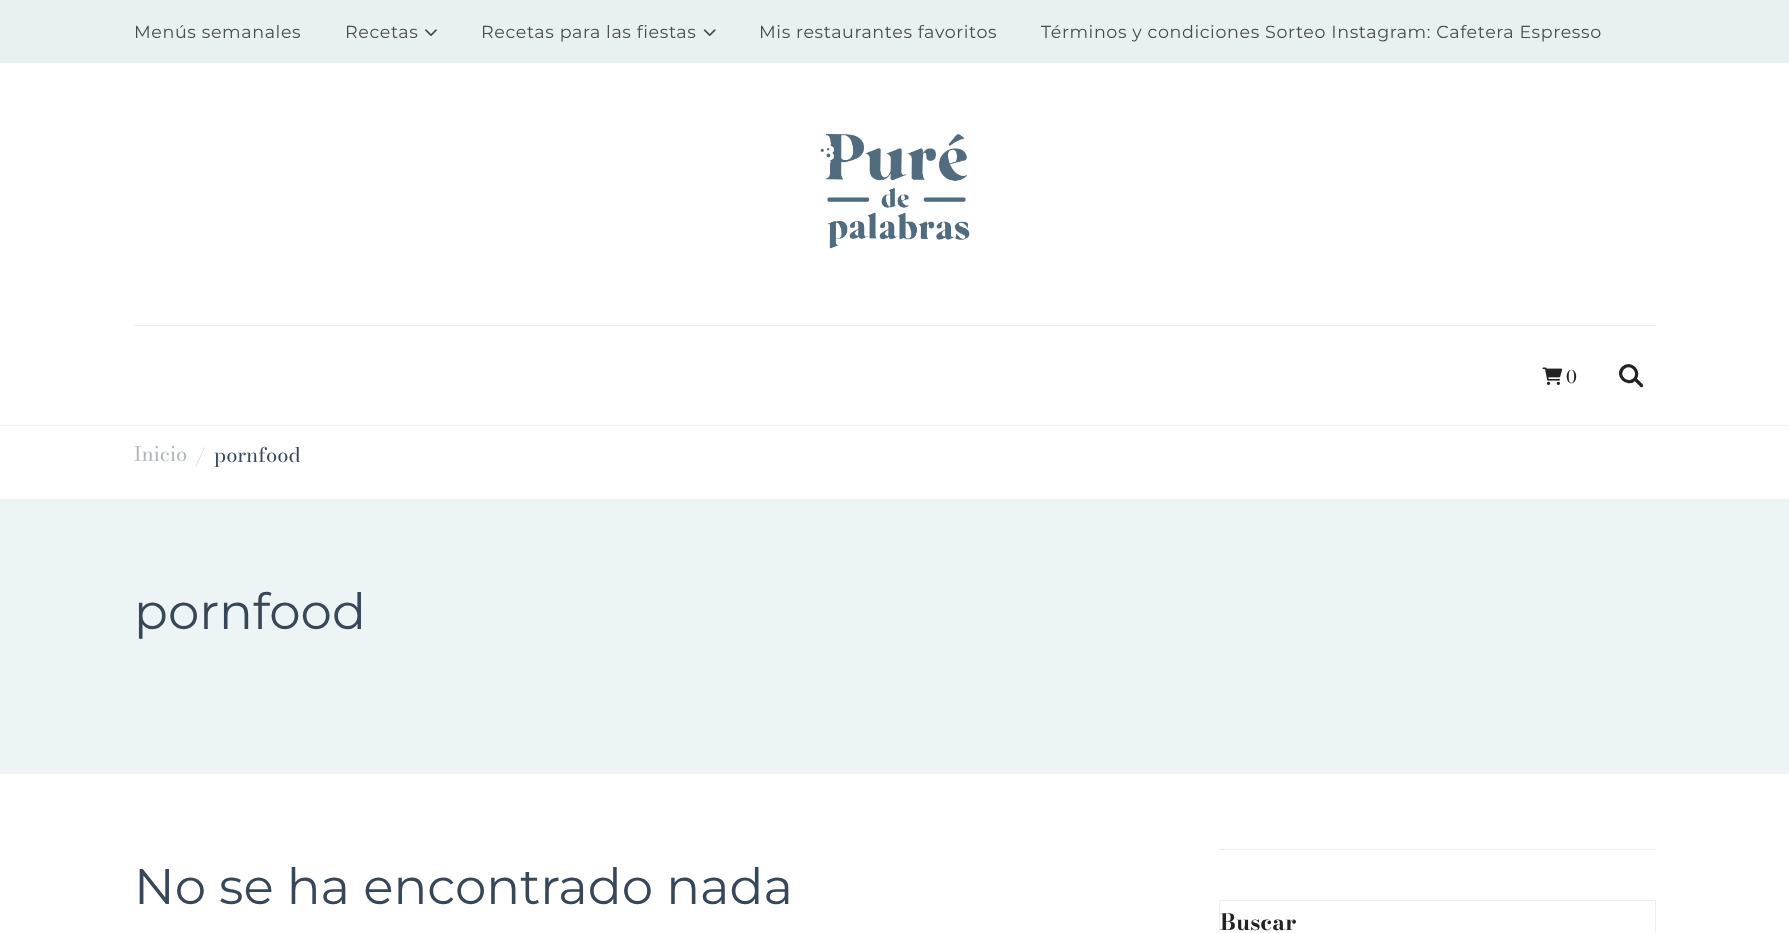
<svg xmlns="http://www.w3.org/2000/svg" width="1789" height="933">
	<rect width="100%" height="100%" fill="#FFFFFF" />
	<rect x="0" y="425" width="1789" height="1" fill="#E8F1F2" />
	<rect x="0" y="0" width="1789" height="63" fill="#E8F1F2" />
	<g font-family="Montserrat" font-size="17.5" letter-spacing="0.62" fill="#4A4C4C">
		<text x="134" y="38">Menús semanales</text>
		<text x="345" y="38">Recetas</text>
	</g>
	<image x="425" y="29" width="12" height="7" href="assets/img1.png" />
	<text x="481" y="38" font-family="Montserrat" font-size="17.5" letter-spacing="0.62" fill="#4A4C4C">Recetas para las fiestas</text>
	<image x="703" y="29" width="13" height="7" href="assets/img2.png" />
	<g font-family="Montserrat" font-size="17.5" letter-spacing="0.62" fill="#4A4C4C">
		<text x="759" y="38">Mis restaurantes favoritos</text>
		<text x="1041" y="38">Términos y condiciones Sorteo Instagram: Cafetera Espresso</text>
	</g>
	<rect x="134" y="325" width="1522" height="1" fill="#E8F1F2" />
	<image x="820" y="134" width="150" height="115" href="assets/img3.png" />
	<image x="1542" y="367" width="21" height="18" href="assets/img4.png" />
	<text x="1566" y="383" font-family="Bodoni Moda" font-size="17.5" fill="#232323">0</text>
	<path d="M1623 368C1630.5 360.5 1641.5 372 1634.5 379.5C1627 386.5 1615.5 375.5 1623 368Z" fill="none" stroke="#232323" stroke-width="3.2" />
	<path d="M1635.5 379.5L1641.5 385.5" fill="none" stroke="#232323" stroke-width="3.2" stroke-linecap="round" />
	<g font-family="Bodoni Moda" font-size="20" fill="#AFB5BC">
		<text x="134" y="461">Inicio</text>
		<text x="195" y="463">/</text>
	</g>
	<text x="214" y="462" font-family="Bodoni Moda" font-size="20" fill="#374757">pornfood</text>
	<rect x="0" y="499" width="1789" height="275" fill="#EDF4F5" />
	<g font-family="Montserrat" font-size="50" fill="#374757">
		<text x="134" y="629">pornfood</text>
		<text x="134" y="904">No se ha encontrado nada</text>
	</g>
	<rect x="1219" y="849" width="437" height="1" fill="#E8F1F2" />
	<rect x="1219.5" y="900.5" width="436" height="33" fill="none" stroke="#E8F1F2" />
	<text x="1220" y="930" font-family="Bodoni Moda" font-size="22.5" font-weight="700" fill="#232323">Buscar</text>
</svg>
